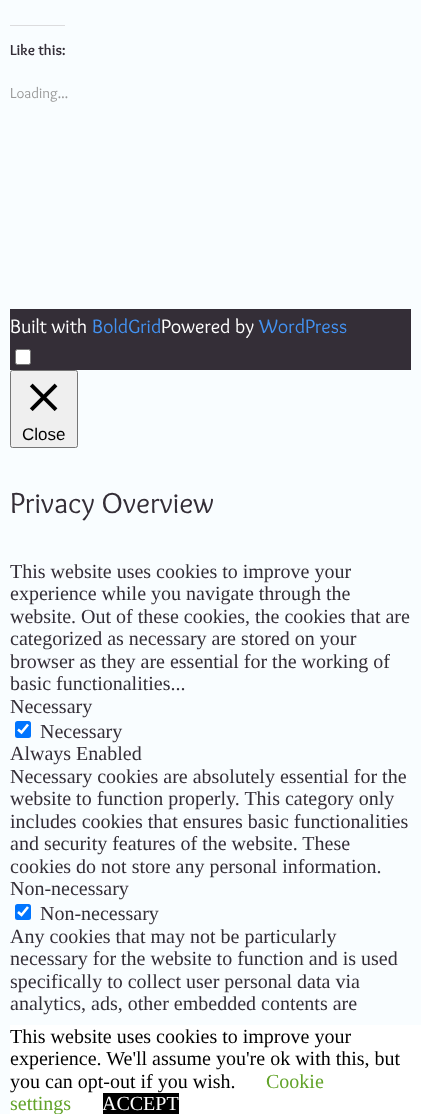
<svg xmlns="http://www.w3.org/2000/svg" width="421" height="1114">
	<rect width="100%" height="100%" fill="#F9FDFF" />
	<rect x="10" y="25" width="55" height="1" fill="#DCDCDE" />
	<text x="10" y="55" font-family="Overlock" font-size="15" font-weight="700" fill="#342E37">Like this:</text>
	<text x="10" y="98" font-family="Overlock" font-size="15" fill="#999999">Loading...</text>
	<rect x="10" y="309" width="401" height="61" fill="#342E37" />
	<text x="10" y="333" font-family="Overlock" font-size="20" fill="#FFFFFF">Built with</text>
	<text x="92" y="333" font-family="Overlock" font-size="20" fill="#4392F1">BoldGrid</text>
	<text x="161" y="333" font-family="Overlock" font-size="20" fill="#FFFFFF">Powered by</text>
	<text x="259" y="333" font-family="Overlock" font-size="20" fill="#4392F1">WordPress</text>
	<rect x="15.5" y="349.5" width="15" height="15" rx="2" fill="#FFFFFF" stroke="#767676" />
	<rect x="10.5" y="370.5" width="67" height="77" rx="2" fill="#EFEFEF" stroke="#767676" />
	<image x="29" y="383" width="29" height="28" href="assets/img1.png" />
	<text x="22" y="440" font-family="Liberation Sans" font-size="17" fill="#000000">Close</text>
	<text x="10" y="513" font-family="Overlock" font-size="30" fill="#342E37">Privacy Overview</text>
	<g font-family="Liberation Serif" font-size="20" fill="#342E37">
		<text x="10" y="578">This website uses cookies to improve your</text>
		<text x="10" y="600">experience while you navigate through the</text>
		<text x="10" y="623">website. Out of these cookies, the cookies that are</text>
		<text x="10" y="645">categorized as necessary are stored on your</text>
		<text x="10" y="668">browser as they are essential for the working of</text>
		<text x="10" y="690">basic functionalities...</text>
		<text x="10" y="713">Necessary</text>
	</g>
	<rect x="15" y="721" width="16" height="17" rx="2.5" fill="#0075FF" />
	<path d="M18 729.5L21.5 732.5L28 724.5" fill="none" stroke="#FFFFFF" stroke-width="2.6" />
	<g font-family="Liberation Serif" font-size="20" fill="#342E37">
		<text x="40" y="738">Necessary</text>
		<text x="10" y="760">Always Enabled</text>
		<text x="10" y="783">Necessary cookies are absolutely essential for the</text>
		<text x="10" y="805">website to function properly. This category only</text>
		<text x="10" y="828">includes cookies that ensures basic functionalities</text>
		<text x="10" y="850">and security features of the website. These</text>
		<text x="10" y="873">cookies do not store any personal information.</text>
		<text x="10" y="895">Non-necessary</text>
	</g>
	<rect x="15" y="904" width="16" height="16" rx="2.5" fill="#0075FF" />
	<path d="M18 912L21.5 915L28 907" fill="none" stroke="#FFFFFF" stroke-width="2.6" />
	<g font-family="Liberation Serif" font-size="20" fill="#342E37">
		<text x="40" y="920">Non-necessary</text>
		<text x="10" y="943">Any cookies that may not be particularly</text>
		<text x="10" y="965">necessary for the website to function and is used</text>
		<text x="10" y="988">specifically to collect user personal data via</text>
		<text x="10" y="1010">analytics, ads, other embedded contents are</text>
	</g>
	<rect x="10" y="1025" width="411" height="89" fill="#FFFFFF" />
	<g font-family="Liberation Serif" font-size="20" fill="#000000">
		<text x="10" y="1043">This website uses cookies to improve your</text>
		<text x="10" y="1065">experience. We'll assume you're ok with this, but</text>
		<text x="10" y="1088">you can opt-out if you wish.</text>
	</g>
	<g font-family="Liberation Serif" font-size="20" fill="#62A329">
		<text x="266" y="1088">Cookie</text>
		<text x="10" y="1110">settings</text>
	</g>
	<rect x="103" y="1093" width="76" height="21" fill="#000000" />
	<text x="102" y="1110" font-family="Liberation Serif" font-size="20" fill="#FFFFFF">ACCEPT</text>
</svg>
